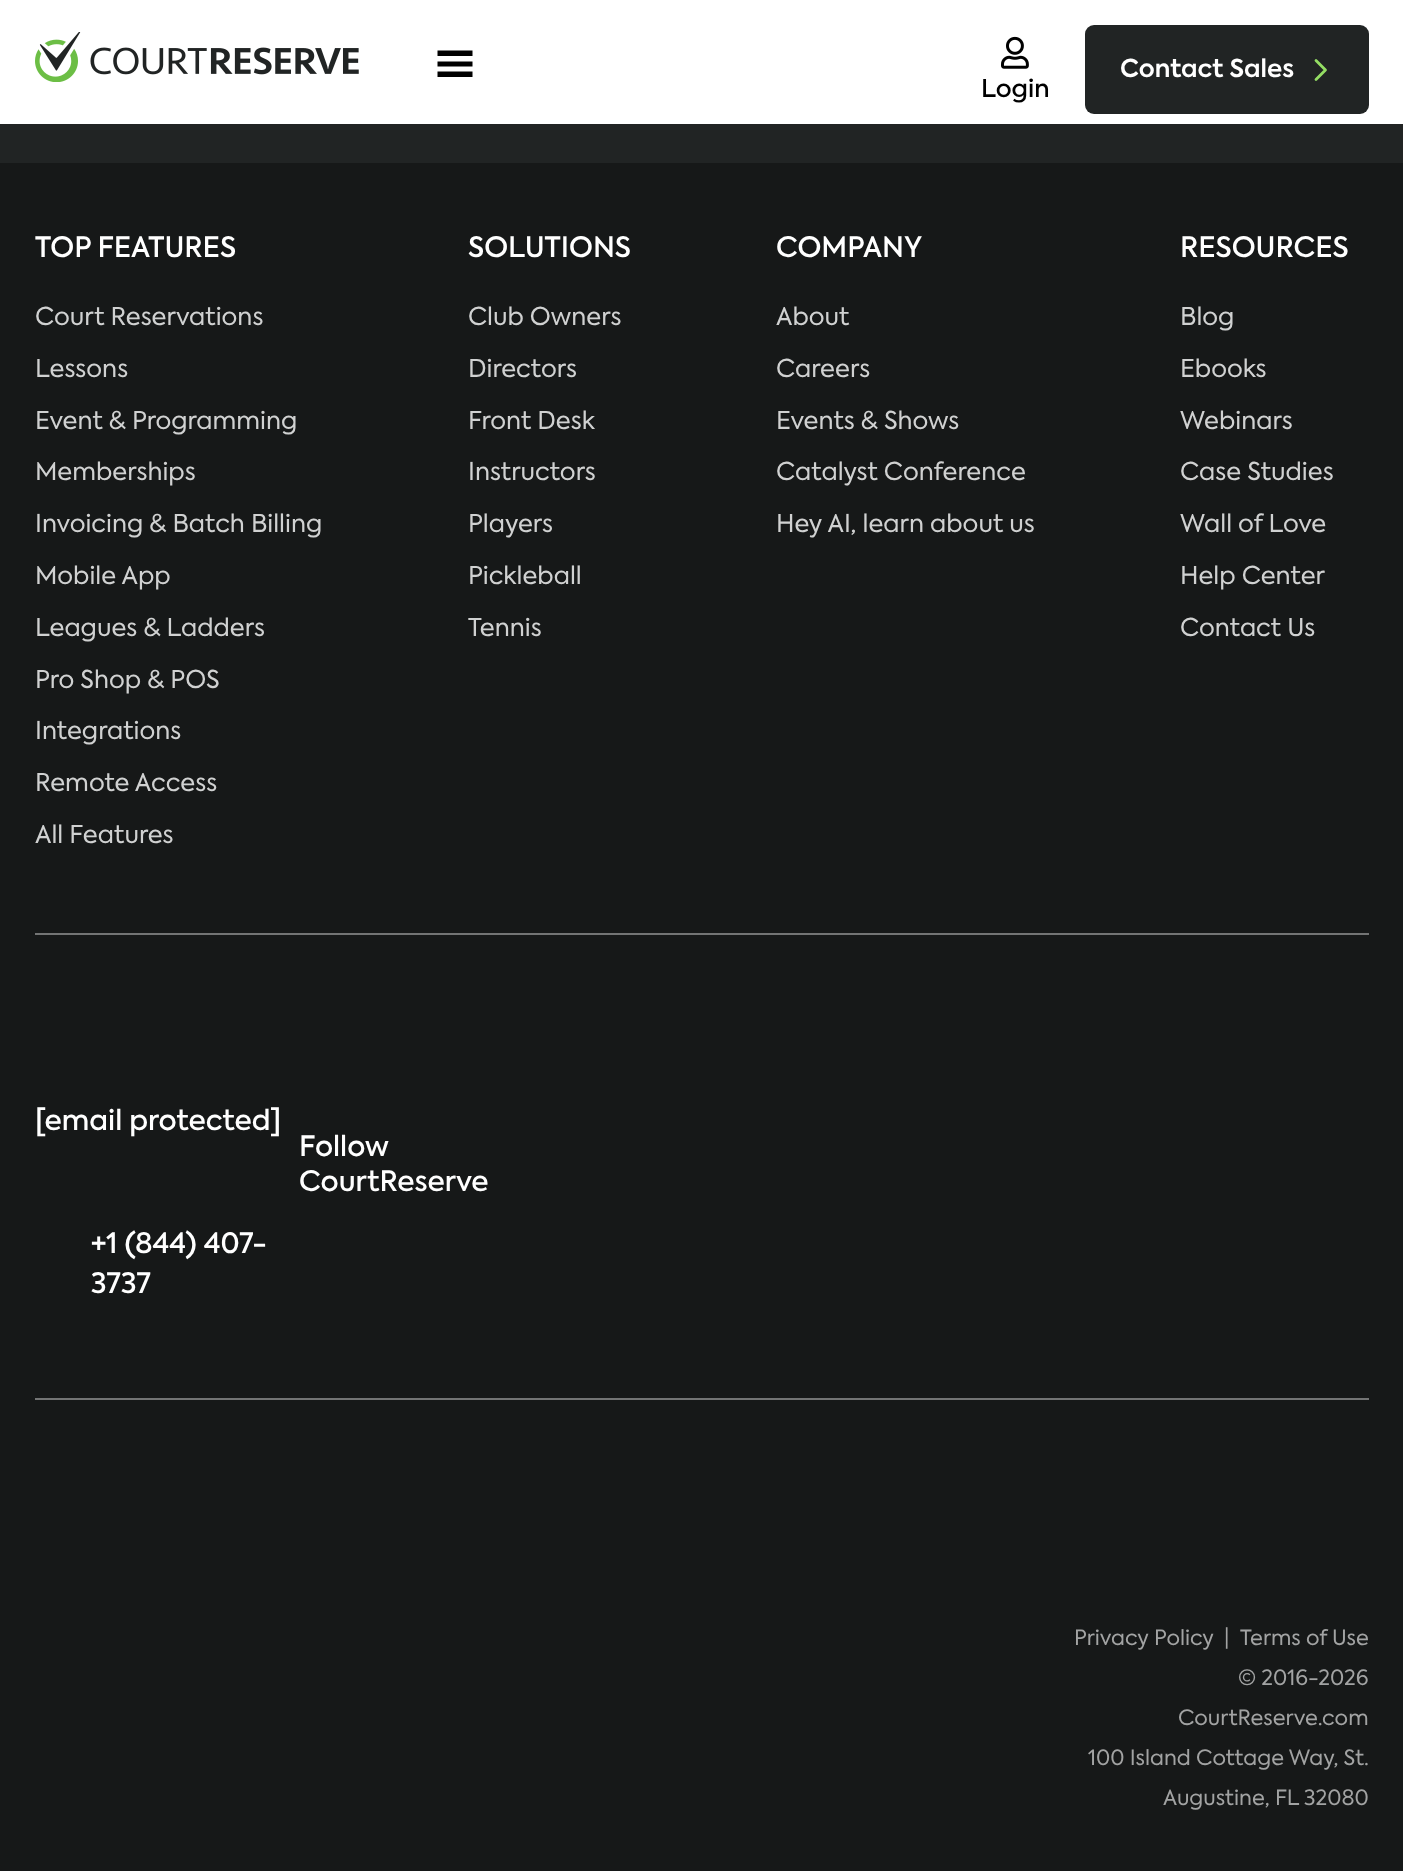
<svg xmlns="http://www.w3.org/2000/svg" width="1403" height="1871">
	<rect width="100%" height="100%" fill="#212424" />
	<rect x="0" y="0" width="1403" height="124" fill="#FFFFFF" />
	<image x="35" y="32" width="324" height="50" href="assets/img1.png" />
	<path d="M472.5 56V50.5H437.5V56ZM472.5 66.5V61.5H437.5V66.5ZM472.5 77V71.5H437.5V77Z" fill="#000000" />
	<rect x="1085" y="25" width="284" height="89" rx="9" fill="#212424" />
	<text x="1120" y="77" font-family="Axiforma" font-size="24.5" font-weight="600" fill="#FFFFFF">Contact Sales</text>
	<path d="M1316 60.5L1325.5 70L1316 79.5" fill="none" stroke="#94DE64" stroke-width="2.8" stroke-linecap="round" stroke-linejoin="round" />
	<image x="1001" y="36" width="28" height="33" href="assets/img2.png" />
	<text x="981" y="97" font-family="Axiforma" font-size="24.5" font-weight="500" fill="#000000">Login</text>
	<rect x="0" y="163" width="1403" height="1708" fill="#161818" />
	<text x="35" y="257" font-family="Axiforma" font-size="28" font-weight="500" fill="#FFFFFF">TOP FEATURES</text>
	<g font-family="Axiforma" font-size="24.5" fill="#D0D1D1">
		<text x="35" y="325">Court Reservations</text>
		<text x="35" y="377">Lessons</text>
		<text x="35" y="429">Event &amp; Programming</text>
		<text x="35" y="480">Memberships</text>
		<text x="35" y="532">Invoicing &amp; Batch Billing</text>
		<text x="35" y="584">Mobile App</text>
		<text x="35" y="636">Leagues &amp; Ladders</text>
		<text x="35" y="688">Pro Shop &amp; POS</text>
		<text x="35" y="739">Integrations</text>
		<text x="35" y="791">Remote Access</text>
		<text x="35" y="843">All Features</text>
	</g>
	<text x="468" y="257" font-family="Axiforma" font-size="28" font-weight="500" fill="#FFFFFF">SOLUTIONS</text>
	<g font-family="Axiforma" font-size="24.5" fill="#D0D1D1">
		<text x="468" y="325">Club Owners</text>
		<text x="468" y="377">Directors</text>
		<text x="468" y="429">Front Desk</text>
		<text x="468" y="480">Instructors</text>
		<text x="468" y="532">Players</text>
		<text x="468" y="584">Pickleball</text>
		<text x="468" y="636">Tennis</text>
	</g>
	<text x="776" y="257" font-family="Axiforma" font-size="28" font-weight="500" fill="#FFFFFF">COMPANY</text>
	<g font-family="Axiforma" font-size="24.5" fill="#D0D1D1">
		<text x="776" y="325">About</text>
		<text x="776" y="377">Careers</text>
		<text x="776" y="429">Events &amp; Shows</text>
		<text x="776" y="480">Catalyst Conference</text>
		<text x="776" y="532">Hey AI, learn about us</text>
	</g>
	<text x="1180" y="257" font-family="Axiforma" font-size="28" font-weight="500" fill="#FFFFFF">RESOURCES</text>
	<g font-family="Axiforma" font-size="24.5" fill="#D0D1D1">
		<text x="1180" y="325">Blog</text>
		<text x="1180" y="377">Ebooks</text>
		<text x="1180" y="429">Webinars</text>
		<text x="1180" y="480">Case Studies</text>
		<text x="1180" y="532">Wall of Love</text>
		<text x="1180" y="584">Help Center</text>
		<text x="1180" y="636">Contact Us</text>
	</g>
	<rect x="35" y="933" width="1334" height="2" fill="#737474" />
	<rect x="35" y="1398" width="1334" height="2" fill="#737474" />
	<g font-family="Axiforma" font-size="28" font-weight="500" fill="#FFFFFF">
		<text x="35" y="1130">[email protected]</text>
		<text x="91" y="1253">+1 (844) 407-</text>
		<text x="91" y="1293">3737</text>
		<text x="299" y="1156">Follow</text>
		<text x="299" y="1191">CourtReserve</text>
	</g>
	<g font-family="Axiforma" font-size="21" fill="#A2A3A3">
		<text x="1074" y="1645">Privacy Policy</text>
		<text x="1224" y="1645">|</text>
		<text x="1240" y="1645">Terms of Use</text>
		<text x="1238" y="1685">© 2016-2026</text>
		<text x="1178" y="1725">CourtReserve.com</text>
		<text x="1088" y="1765">100 Island Cottage Way, St.</text>
		<text x="1163" y="1805">Augustine, FL 32080</text>
	</g>
</svg>
